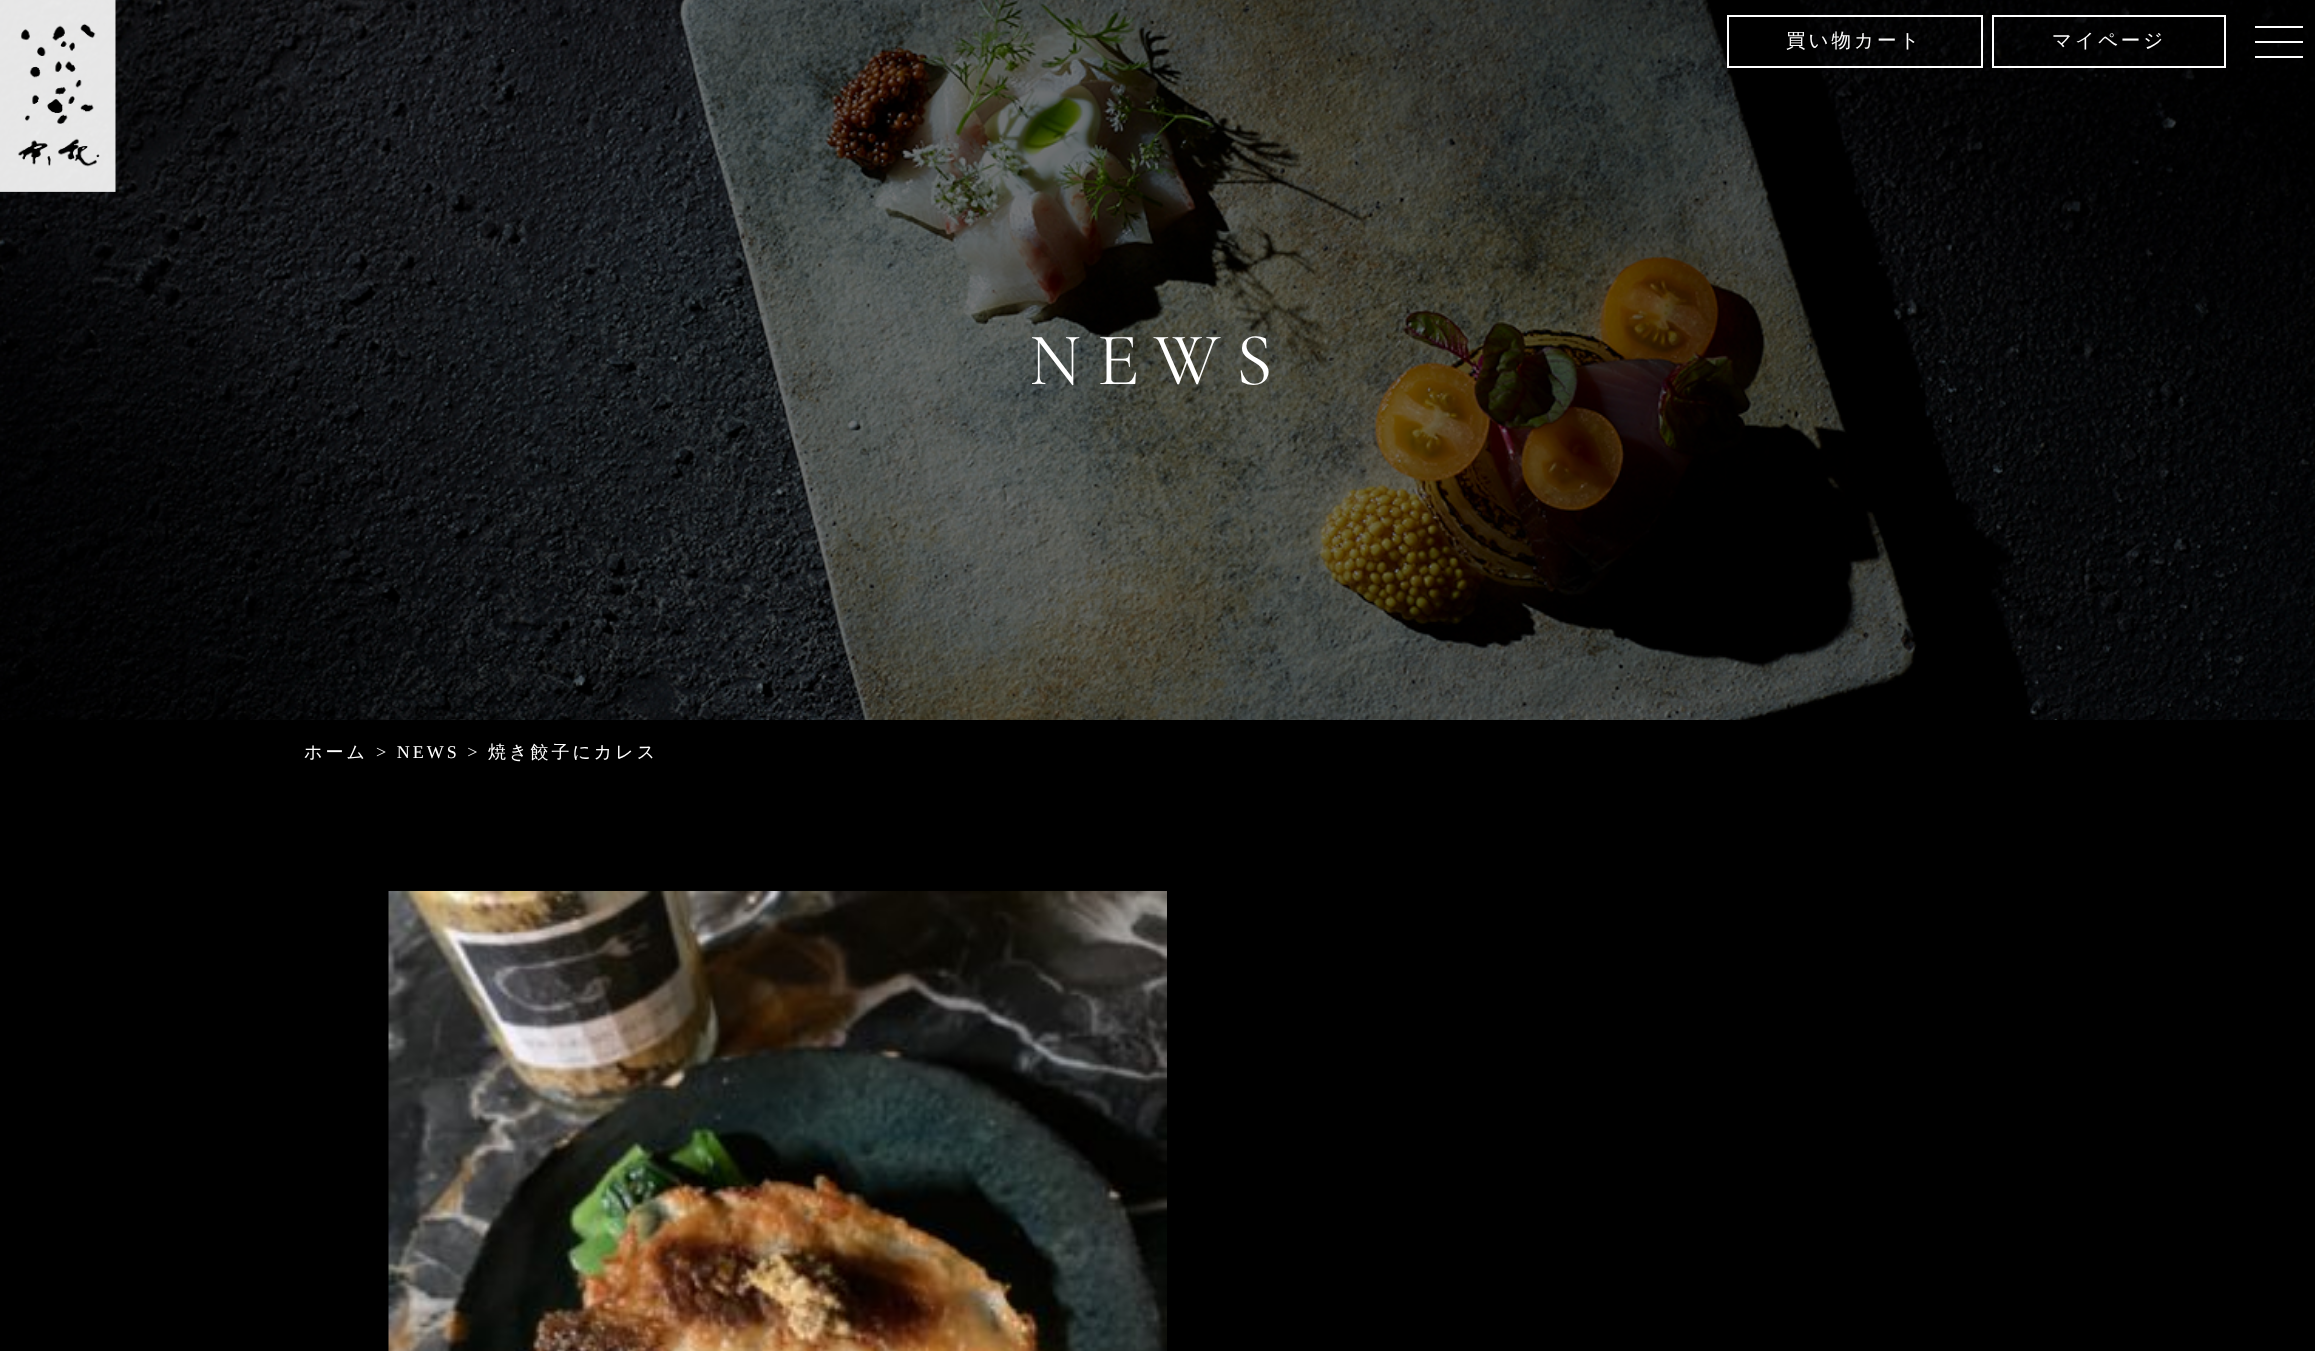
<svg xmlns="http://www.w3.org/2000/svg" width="2315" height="1351">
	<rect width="100%" height="100%" fill="#000000" />
	<image x="0" y="0" width="2315" height="720" href="assets/img2.png" />
	<image x="0" y="0" width="116" height="192" href="assets/img1.png" />
	<rect x="1728" y="16" width="254" height="51" fill="none" stroke="#FFFFFF" stroke-width="2" />
	<text x="1786" y="47" font-family="WenQuanYi Zen Hei" font-size="19.5" font-weight="500" letter-spacing="3" fill="#FFFFFF">買い物カート</text>
	<rect x="1993" y="16" width="232" height="51" fill="none" stroke="#FFFFFF" stroke-width="2" />
	<text x="2052" y="47" font-family="WenQuanYi Zen Hei" font-size="19.5" font-weight="500" letter-spacing="3" fill="#FFFFFF">マイページ</text>
	<rect x="2255" y="41" width="48" height="2" fill="#FFFFFF" />
	<rect x="2255" y="26" width="48" height="2" fill="#FFFFFF" />
	<rect x="2255" y="56" width="48" height="2" fill="#FFFFFF" />
	<text x="1029" y="384" font-family="Cormorant Upright" font-size="75" letter-spacing="15" fill="#FFFFFF">NEWS</text>
	<text x="304" y="758" font-family="WenQuanYi Zen Hei" font-size="18" font-weight="500" letter-spacing="3" fill="#FFFFFF">ホーム</text>
	<text x="376" y="758" font-family="Liberation Serif" font-size="18" letter-spacing="3" fill="#FFFFFF">&gt; NEWS &gt;</text>
	<text x="488" y="758" font-family="WenQuanYi Zen Hei" font-size="18" font-weight="500" letter-spacing="3" fill="#FFFFFF">焼き餃子にカレス</text>
	<image x="388" y="891" width="779" height="460" href="assets/img3.png" />
</svg>
